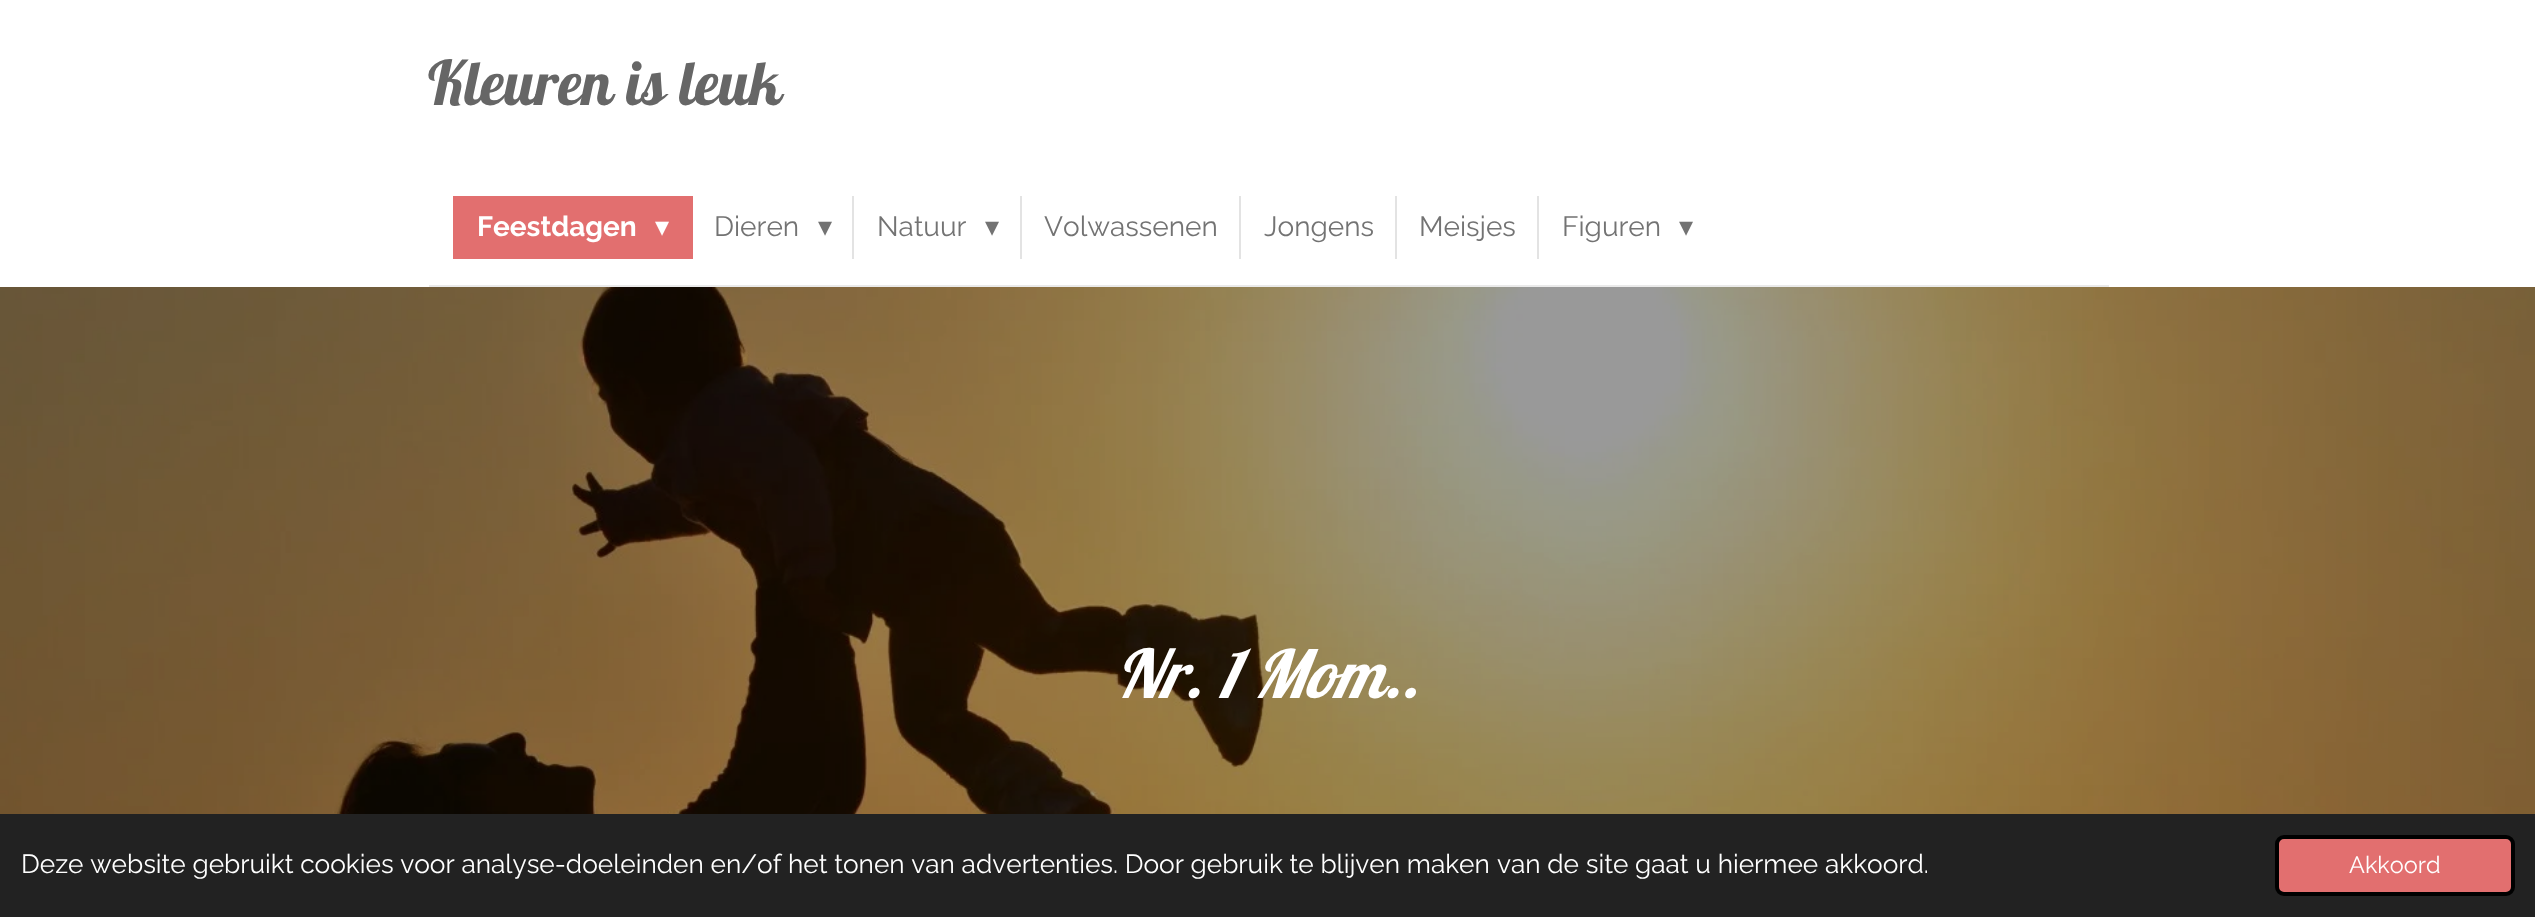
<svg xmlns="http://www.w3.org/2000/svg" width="2535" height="917">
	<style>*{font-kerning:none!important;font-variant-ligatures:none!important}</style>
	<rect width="100%" height="100%" fill="#FFFFFF" />
	<rect x="429" y="285" width="1680" height="2" fill="#EAEAEA" />
	<text x="428" y="105" font-family="Lobster" font-size="61.25" fill="#666666">Kleuren is leuk</text>
	<rect x="453" y="196" width="240" height="63" fill="#E26F6F" />
	<text x="477" y="236" font-family="Raleway" font-size="28" font-weight="700" fill="#FFFFFF">Feestdagen</text>
	<text x="655" y="236" font-family="DejaVu Sans" font-size="28" fill="#FFFFFF">▾</text>
	<text x="714" y="236" font-family="Raleway" font-size="28" fill="#737373">Dieren</text>
	<text x="818" y="236" font-family="DejaVu Sans" font-size="28" fill="#737373">▾</text>
	<rect x="852" y="196" width="2" height="63" fill="#E3E3E3" />
	<text x="877" y="236" font-family="Raleway" font-size="28" fill="#737373">Natuur</text>
	<text x="985" y="236" font-family="DejaVu Sans" font-size="28" fill="#737373">▾</text>
	<rect x="1020" y="196" width="2" height="63" fill="#E3E3E3" />
	<text x="1044" y="236" font-family="Raleway" font-size="28" fill="#737373">Volwassenen</text>
	<rect x="1239" y="196" width="2" height="63" fill="#E3E3E3" />
	<text x="1264" y="236" font-family="Raleway" font-size="28" fill="#737373">Jongens</text>
	<rect x="1395" y="196" width="2" height="63" fill="#E3E3E3" />
	<text x="1419" y="236" font-family="Raleway" font-size="28" fill="#737373">Meisjes</text>
	<rect x="1537" y="196" width="2" height="63" fill="#E3E3E3" />
	<text x="1562" y="236" font-family="Raleway" font-size="28" fill="#737373">Figuren</text>
	<text x="1679" y="236" font-family="DejaVu Sans" font-size="28" fill="#737373">▾</text>
	<image x="0" y="287" width="2535" height="527" href="assets/img1.png" />
	<text x="1116" y="698" font-family="Lobster" font-size="66.5" font-style="italic" fill="#FFFFFF">Nr. 1 Mom..</text>
	<rect x="0" y="814" width="2535" height="103" fill="#222222" />
	<text x="21" y="873" font-family="Raleway" font-size="26.25" fill="#FFFFFF">Deze website gebruikt cookies voor analyse-doeleinden en/of</text>
	<text x="788" y="873" font-family="Raleway" font-size="26.25" fill="#FFFFFF">het tonen van advertenties. Door gebruik te blijven maken</text>
	<text x="1497" y="873" font-family="Raleway" font-size="26.25" fill="#FFFFFF">van de site gaat u hiermee akkoord.</text>
	<rect x="2277" y="837" width="236" height="57" rx="7" fill="#E26F6F" stroke="#000000" stroke-width="4" />
	<text x="2349" y="873" font-family="Raleway" font-size="23.5" fill="#FFFFFF">Akkoord</text>
</svg>
